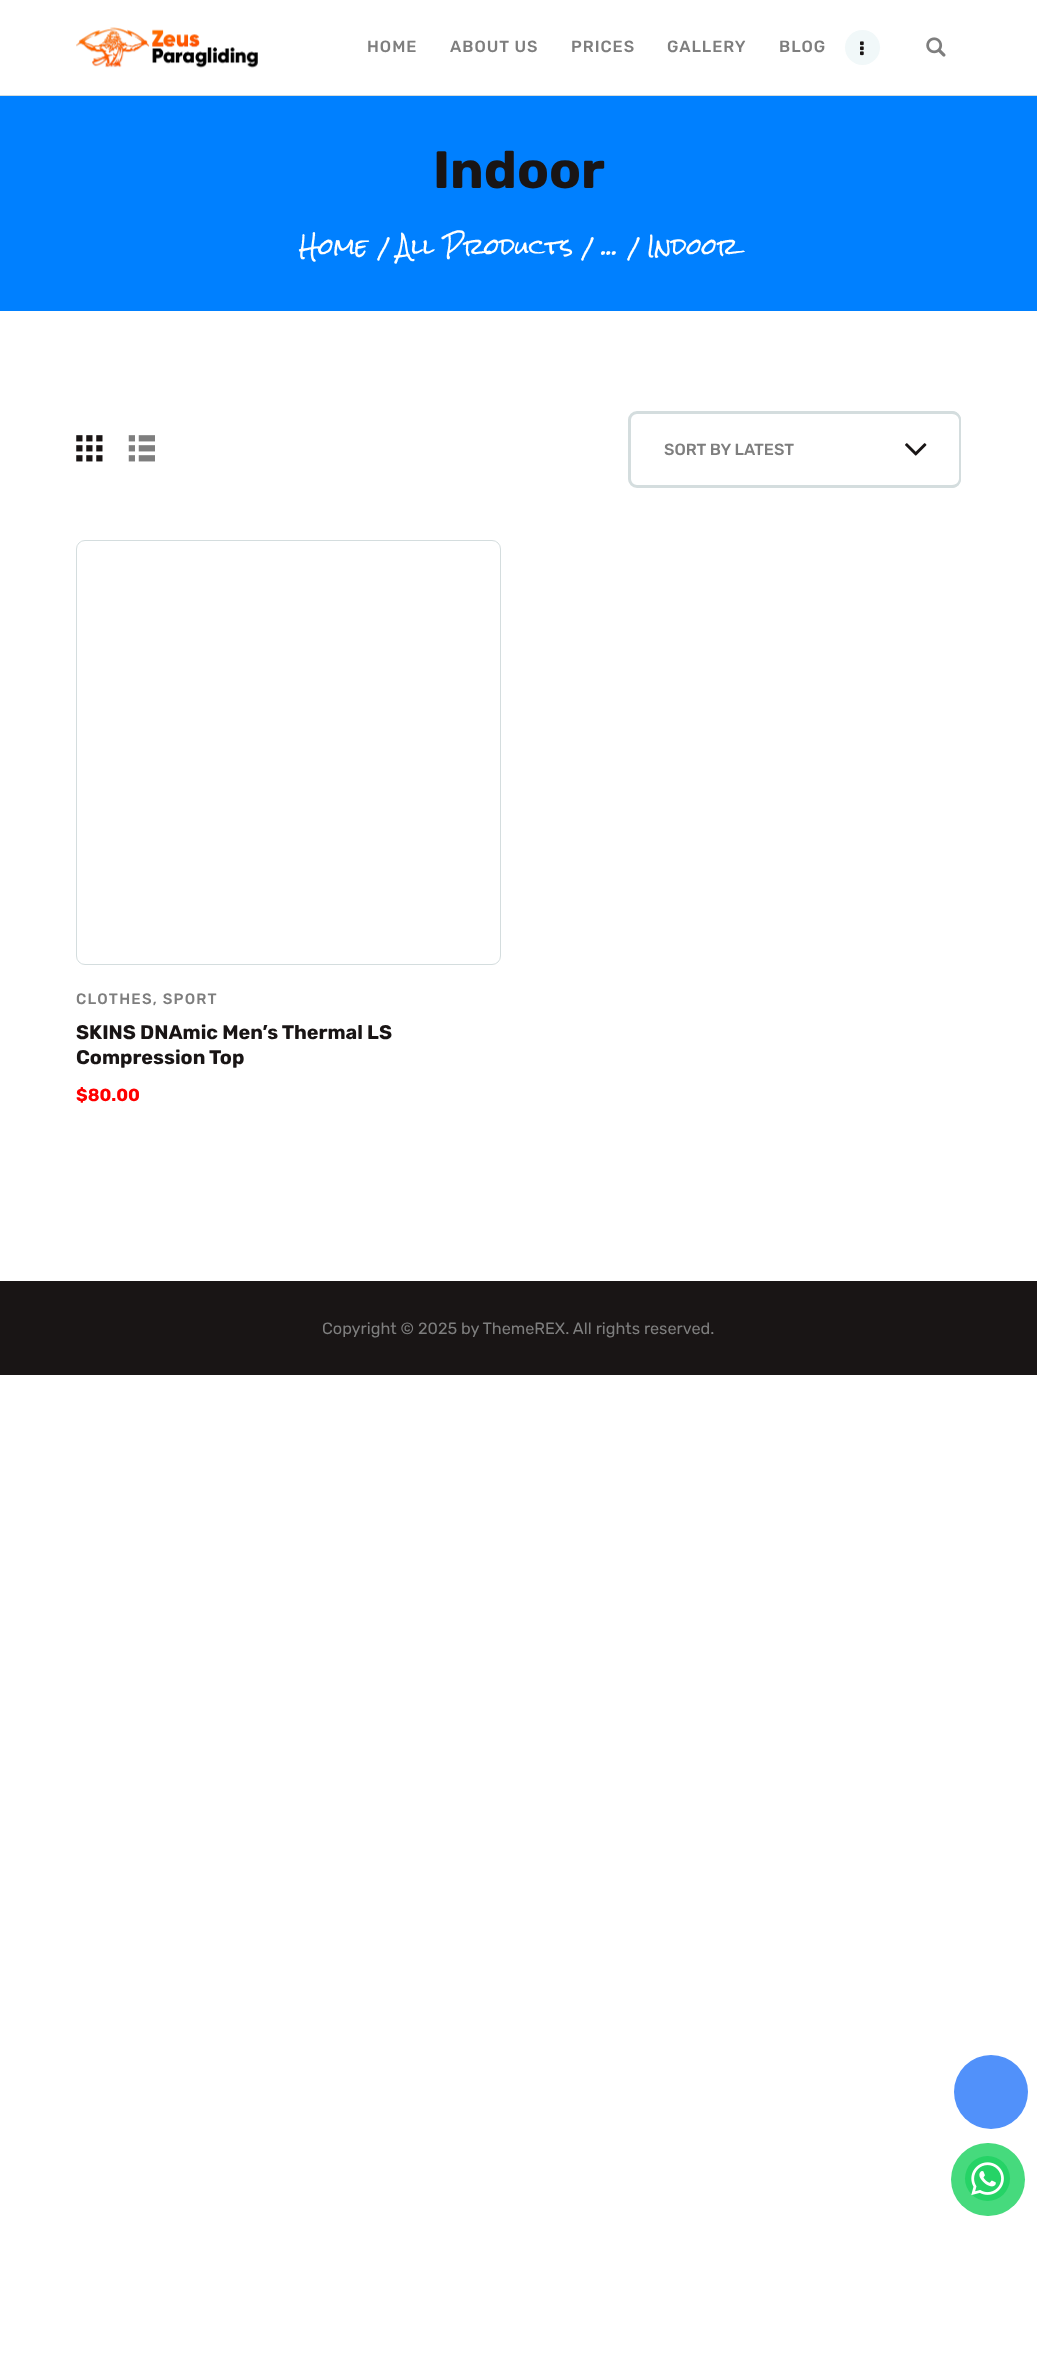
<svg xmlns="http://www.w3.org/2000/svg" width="1037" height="2359">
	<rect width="100%" height="100%" fill="#FFFFFF" />
	<rect x="0" y="95" width="1037" height="1" fill="#D4DDDE" />
	<image x="76" y="27" width="182" height="41" href="assets/img1.png" />
	<g font-family="Rubik" font-size="16.25" font-weight="500" letter-spacing="1" fill="#7E7E7E">
		<text x="367" y="52">HOME</text>
		<text x="450" y="52">ABOUT US</text>
		<text x="571" y="52">PRICES</text>
		<text x="667" y="52">GALLERY</text>
		<text x="779" y="52">BLOG</text>
	</g>
	<circle cx="862.5" cy="47.5" r="17.5" fill="#F1F8F9" />
	<image x="860" y="41" width="4" height="15" href="assets/img2.png" />
	<image x="926" y="37" width="20" height="20" href="assets/img3.png" />
	<rect x="0" y="96" width="1037" height="215" fill="#0080FF" />
	<text x="433" y="188" font-family="Rubik" font-size="52.5" font-weight="700" fill="#191515">Indoor</text>
	<g font-family="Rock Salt" font-size="22" fill="#FFFFFF">
		<text x="299" y="255">Home</text>
		<text x="378" y="255">/</text>
		<text x="397" y="255">All Products</text>
		<text x="582" y="255">/</text>
		<text x="602" y="255">...</text>
		<text x="628" y="255">/</text>
		<text x="647" y="255">Indoor</text>
	</g>
	<image x="76" y="435" width="27" height="27" href="assets/img4.png" />
	<image x="128" y="435" width="27" height="27" href="assets/img5.png" />
	<rect x="629.5" y="412.5" width="330" height="74" rx="7.5" fill="none" stroke="#D4DDDE" stroke-width="3" />
	<text x="664" y="455" font-family="Rubik" font-size="16.25" font-weight="500" fill="#7E7E7E">SORT BY LATEST</text>
	<path d="M910 414H953C956.5 414 959 416.5 959 420V479C959 482.5 956.5 485 953 485H910Z" fill="#FFFFFF" />
	<path d="M910 411H952C957 411 961 415 961 420V479C961 484 957 488 952 488H910ZM910 414H952C956 414 959 417 959 420V479C959 482 956 485 952 485H910Z" fill="#D4DDDE" fill-rule="evenodd" />
	<image x="905" y="443" width="22" height="13" href="assets/img6.png" />
	<rect x="76.5" y="540.5" width="424" height="424" rx="8.5" fill="none" stroke="#D4DDDE" />
	<text x="76" y="1004" font-family="Rubik" font-size="15" font-weight="500" letter-spacing="1.25" fill="#7E7E7E">CLOTHES, SPORT</text>
	<g font-family="Rubik" font-size="19.75" font-weight="700" fill="#191515">
		<text x="76" y="1039">SKINS DNAmic Men’s Thermal LS</text>
		<text x="76" y="1064">Compression Top</text>
	</g>
	<text x="76" y="1101" font-family="Rubik" font-size="17.5" font-weight="700" fill="#FF0000">$80.00</text>
	<rect x="0" y="1281" width="1037" height="94" fill="#191515" />
	<text x="322" y="1334" font-family="Rubik" font-size="16.3" fill="#7E7E7E">Copyright © 2025 by ThemeREX. All rights reserved.</text>
	<circle cx="991" cy="2092" r="37" fill="#5191FA" />
	<rect x="951" y="2143" width="74" height="73" rx="36.5" fill="#46DA7D" />
	<circle cx="987.5" cy="2178.5" r="22.5" fill="#25D366" />
	<image x="971" y="2162" width="33" height="34" href="assets/img7.png" />
</svg>
